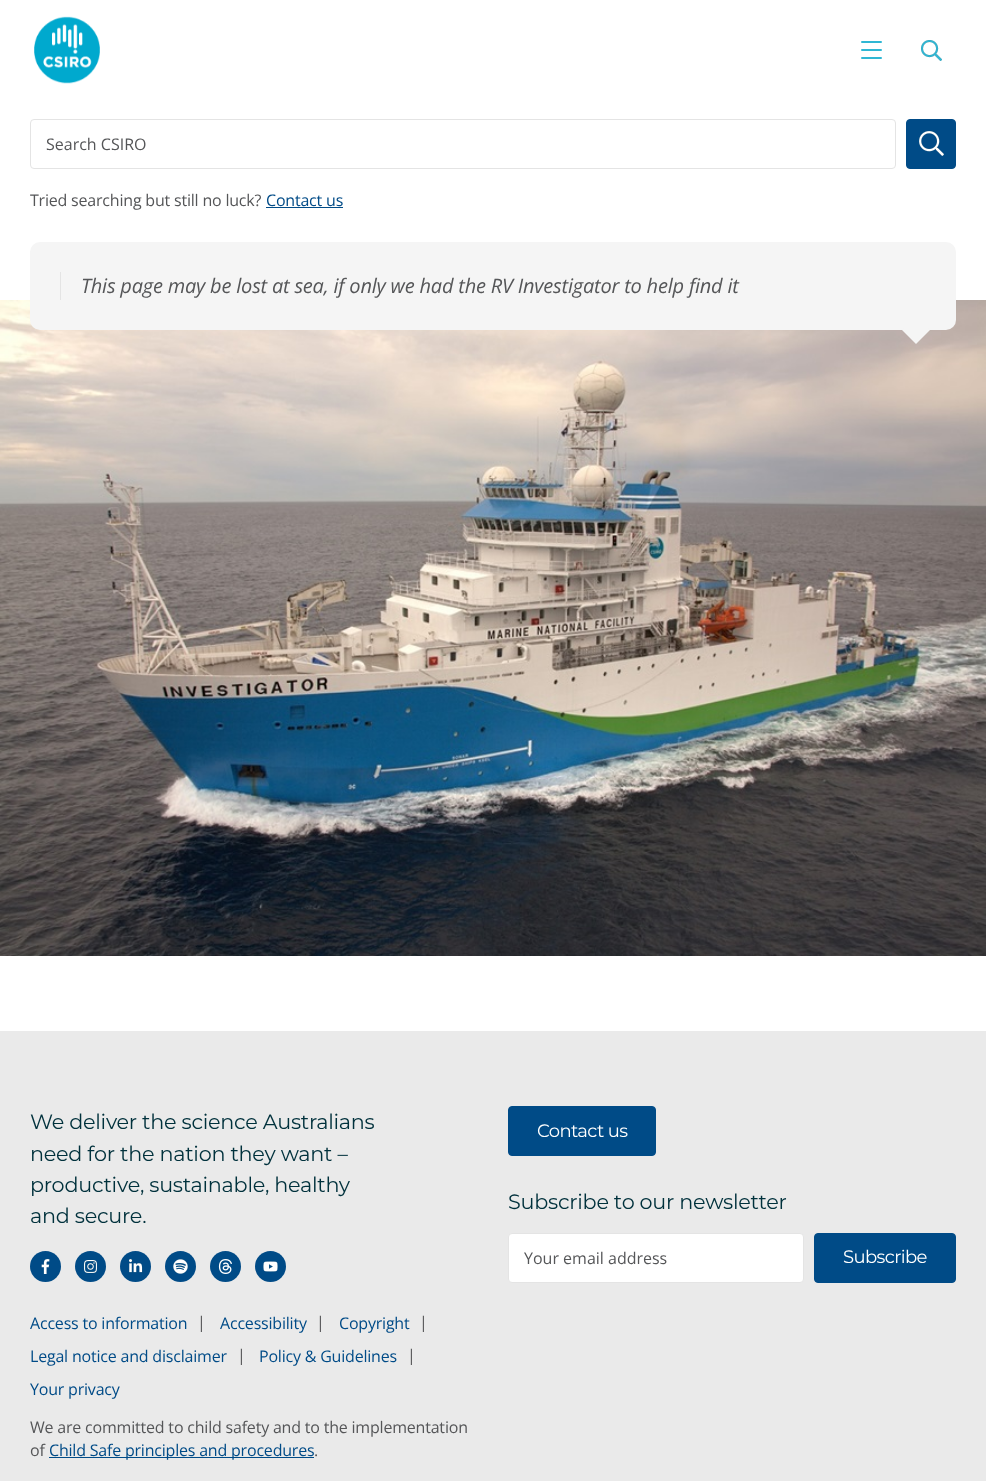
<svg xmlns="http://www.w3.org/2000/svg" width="986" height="1481">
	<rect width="100%" height="100%" fill="#FFFFFF" />
	<image x="34" y="16" width="66" height="68" href="assets/img1.png" />
	<rect x="861" y="49" width="21" height="2" rx="1" fill="#30B7D4" />
	<rect x="861" y="41" width="21" height="2" rx="1" fill="#30B7D4" />
	<rect x="861" y="57" width="21" height="2" rx="1" fill="#30B7D4" />
	<image x="921" y="40" width="21" height="21" href="assets/img2.png" />
	<rect x="30.5" y="119.5" width="865" height="49" rx="3.5" fill="none" stroke="#E4E4E4" />
	<text x="46" y="150" font-family="Open Sans" font-size="16" fill="#555658">Search CSIRO</text>
	<rect x="906.5" y="119.5" width="49" height="49" rx="3.5" fill="#004B87" stroke="#004B87" />
	<image x="919" y="131" width="25" height="25" href="assets/img3.png" />
	<text x="30" y="206" font-family="Open Sans" font-size="16" letter-spacing="-0.2" fill="#555658">Tried searching but still no luck?</text>
	<text x="266" y="206" font-family="Open Sans" font-size="16" letter-spacing="-0.2" fill="#004B87">Contact us</text>
	<rect x="266" y="207" width="77" height="1" fill="#004B87" />
	<image x="0" y="300" width="986" height="656" href="assets/img4.png" />
	<rect x="30" y="242" width="926" height="88" rx="10" fill="#F5F5F5" />
	<rect x="60" y="272" width="1" height="28" fill="#E4E4E4" />
	<text x="81" y="293" font-family="Open Sans" font-size="20" font-style="italic" letter-spacing="-0.2" fill="#555658">This page may be lost at sea, if only we had the RV Investigator to help find it</text>
	<path d="M902 330L916 315.5L930 330L916 344Z" fill="#F5F5F5" />
	<rect x="0" y="1031" width="986" height="450" fill="#EAEAEA" />
	<g font-family="Montserrat" font-size="20.75" letter-spacing="-0.25" fill="#00313C">
		<text x="30" y="1129">We deliver the science Australians</text>
		<text x="30" y="1161">need for the nation they want –</text>
		<text x="30" y="1192">productive, sustainable, healthy</text>
		<text x="30" y="1223">and secure.</text>
	</g>
	<circle cx="45.5" cy="1266.5" r="15.5" fill="#004B87" />
	<image x="41" y="1259" width="9" height="15" href="assets/img5.png" />
	<circle cx="90.5" cy="1266.5" r="15.5" fill="#004B87" />
	<image x="83" y="1259" width="15" height="15" href="assets/img6.png" />
	<circle cx="135.5" cy="1266.5" r="15.5" fill="#004B87" />
	<image x="128" y="1259" width="15" height="14" href="assets/img7.png" />
	<circle cx="180.5" cy="1266.5" r="15.5" fill="#004B87" />
	<image x="173" y="1259" width="15" height="15" href="assets/img8.png" />
	<circle cx="225.5" cy="1266.5" r="15.5" fill="#004B87" />
	<image x="218" y="1259" width="14" height="15" href="assets/img9.png" />
	<circle cx="270.5" cy="1266.5" r="15.5" fill="#004B87" />
	<image x="263" y="1261" width="15" height="11" href="assets/img10.png" />
	<text x="30" y="1329" font-family="Open Sans" font-size="16" letter-spacing="-0.2" fill="#004B87">Access to information</text>
	<text x="197" y="1328" font-family="Open Sans" font-size="16" letter-spacing="-0.2" fill="#555658">|</text>
	<text x="220" y="1329" font-family="Open Sans" font-size="16" letter-spacing="-0.2" fill="#004B87">Accessibility</text>
	<text x="316" y="1328" font-family="Open Sans" font-size="16" letter-spacing="-0.2" fill="#555658">|</text>
	<text x="339" y="1329" font-family="Open Sans" font-size="16" letter-spacing="-0.2" fill="#004B87">Copyright</text>
	<text x="419" y="1328" font-family="Open Sans" font-size="16" letter-spacing="-0.2" fill="#555658">|</text>
	<text x="30" y="1362" font-family="Open Sans" font-size="16" letter-spacing="-0.2" fill="#004B87">Legal notice and disclaimer</text>
	<text x="237" y="1361" font-family="Open Sans" font-size="16" letter-spacing="-0.2" fill="#555658">|</text>
	<text x="259" y="1362" font-family="Open Sans" font-size="16" letter-spacing="-0.2" fill="#004B87">Policy &amp; Guidelines</text>
	<text x="407" y="1361" font-family="Open Sans" font-size="16" letter-spacing="-0.2" fill="#555658">|</text>
	<text x="30" y="1395" font-family="Open Sans" font-size="16" letter-spacing="-0.2" fill="#004B87">Your privacy</text>
	<g font-family="Open Sans" font-size="16" letter-spacing="-0.2" fill="#555658">
		<text x="30" y="1433">We are committed to child safety and to the implementation</text>
		<text x="30" y="1456">of</text>
	</g>
	<rect x="49" y="1457" width="265" height="1" fill="#004B87" />
	<text x="49" y="1456" font-family="Open Sans" font-size="16" letter-spacing="-0.2" fill="#004B87">Child Safe principles and procedures</text>
	<text x="314" y="1456" font-family="Open Sans" font-size="16" letter-spacing="-0.2" fill="#555658">.</text>
	<rect x="508.5" y="1106.5" width="147" height="49" rx="3.5" fill="#004B87" stroke="#004B87" />
	<text x="537" y="1137" font-family="Montserrat" font-size="18" letter-spacing="-0.6" fill="#FFFFFF">Contact us</text>
	<text x="508" y="1209" font-family="Montserrat" font-size="20.75" letter-spacing="-0.25" fill="#00313C">Subscribe to our newsletter</text>
	<rect x="508.5" y="1233.5" width="295" height="49" rx="3.5" fill="#FFFFFF" stroke="#E4E4E4" />
	<text x="524" y="1264" font-family="Open Sans" font-size="16" fill="#555658">Your email address</text>
	<rect x="814.5" y="1233.5" width="141" height="49" rx="3.5" fill="#004B87" stroke="#004B87" />
	<text x="843" y="1263" font-family="Montserrat" font-size="18" letter-spacing="-0.6" fill="#FFFFFF">Subscribe</text>
</svg>
